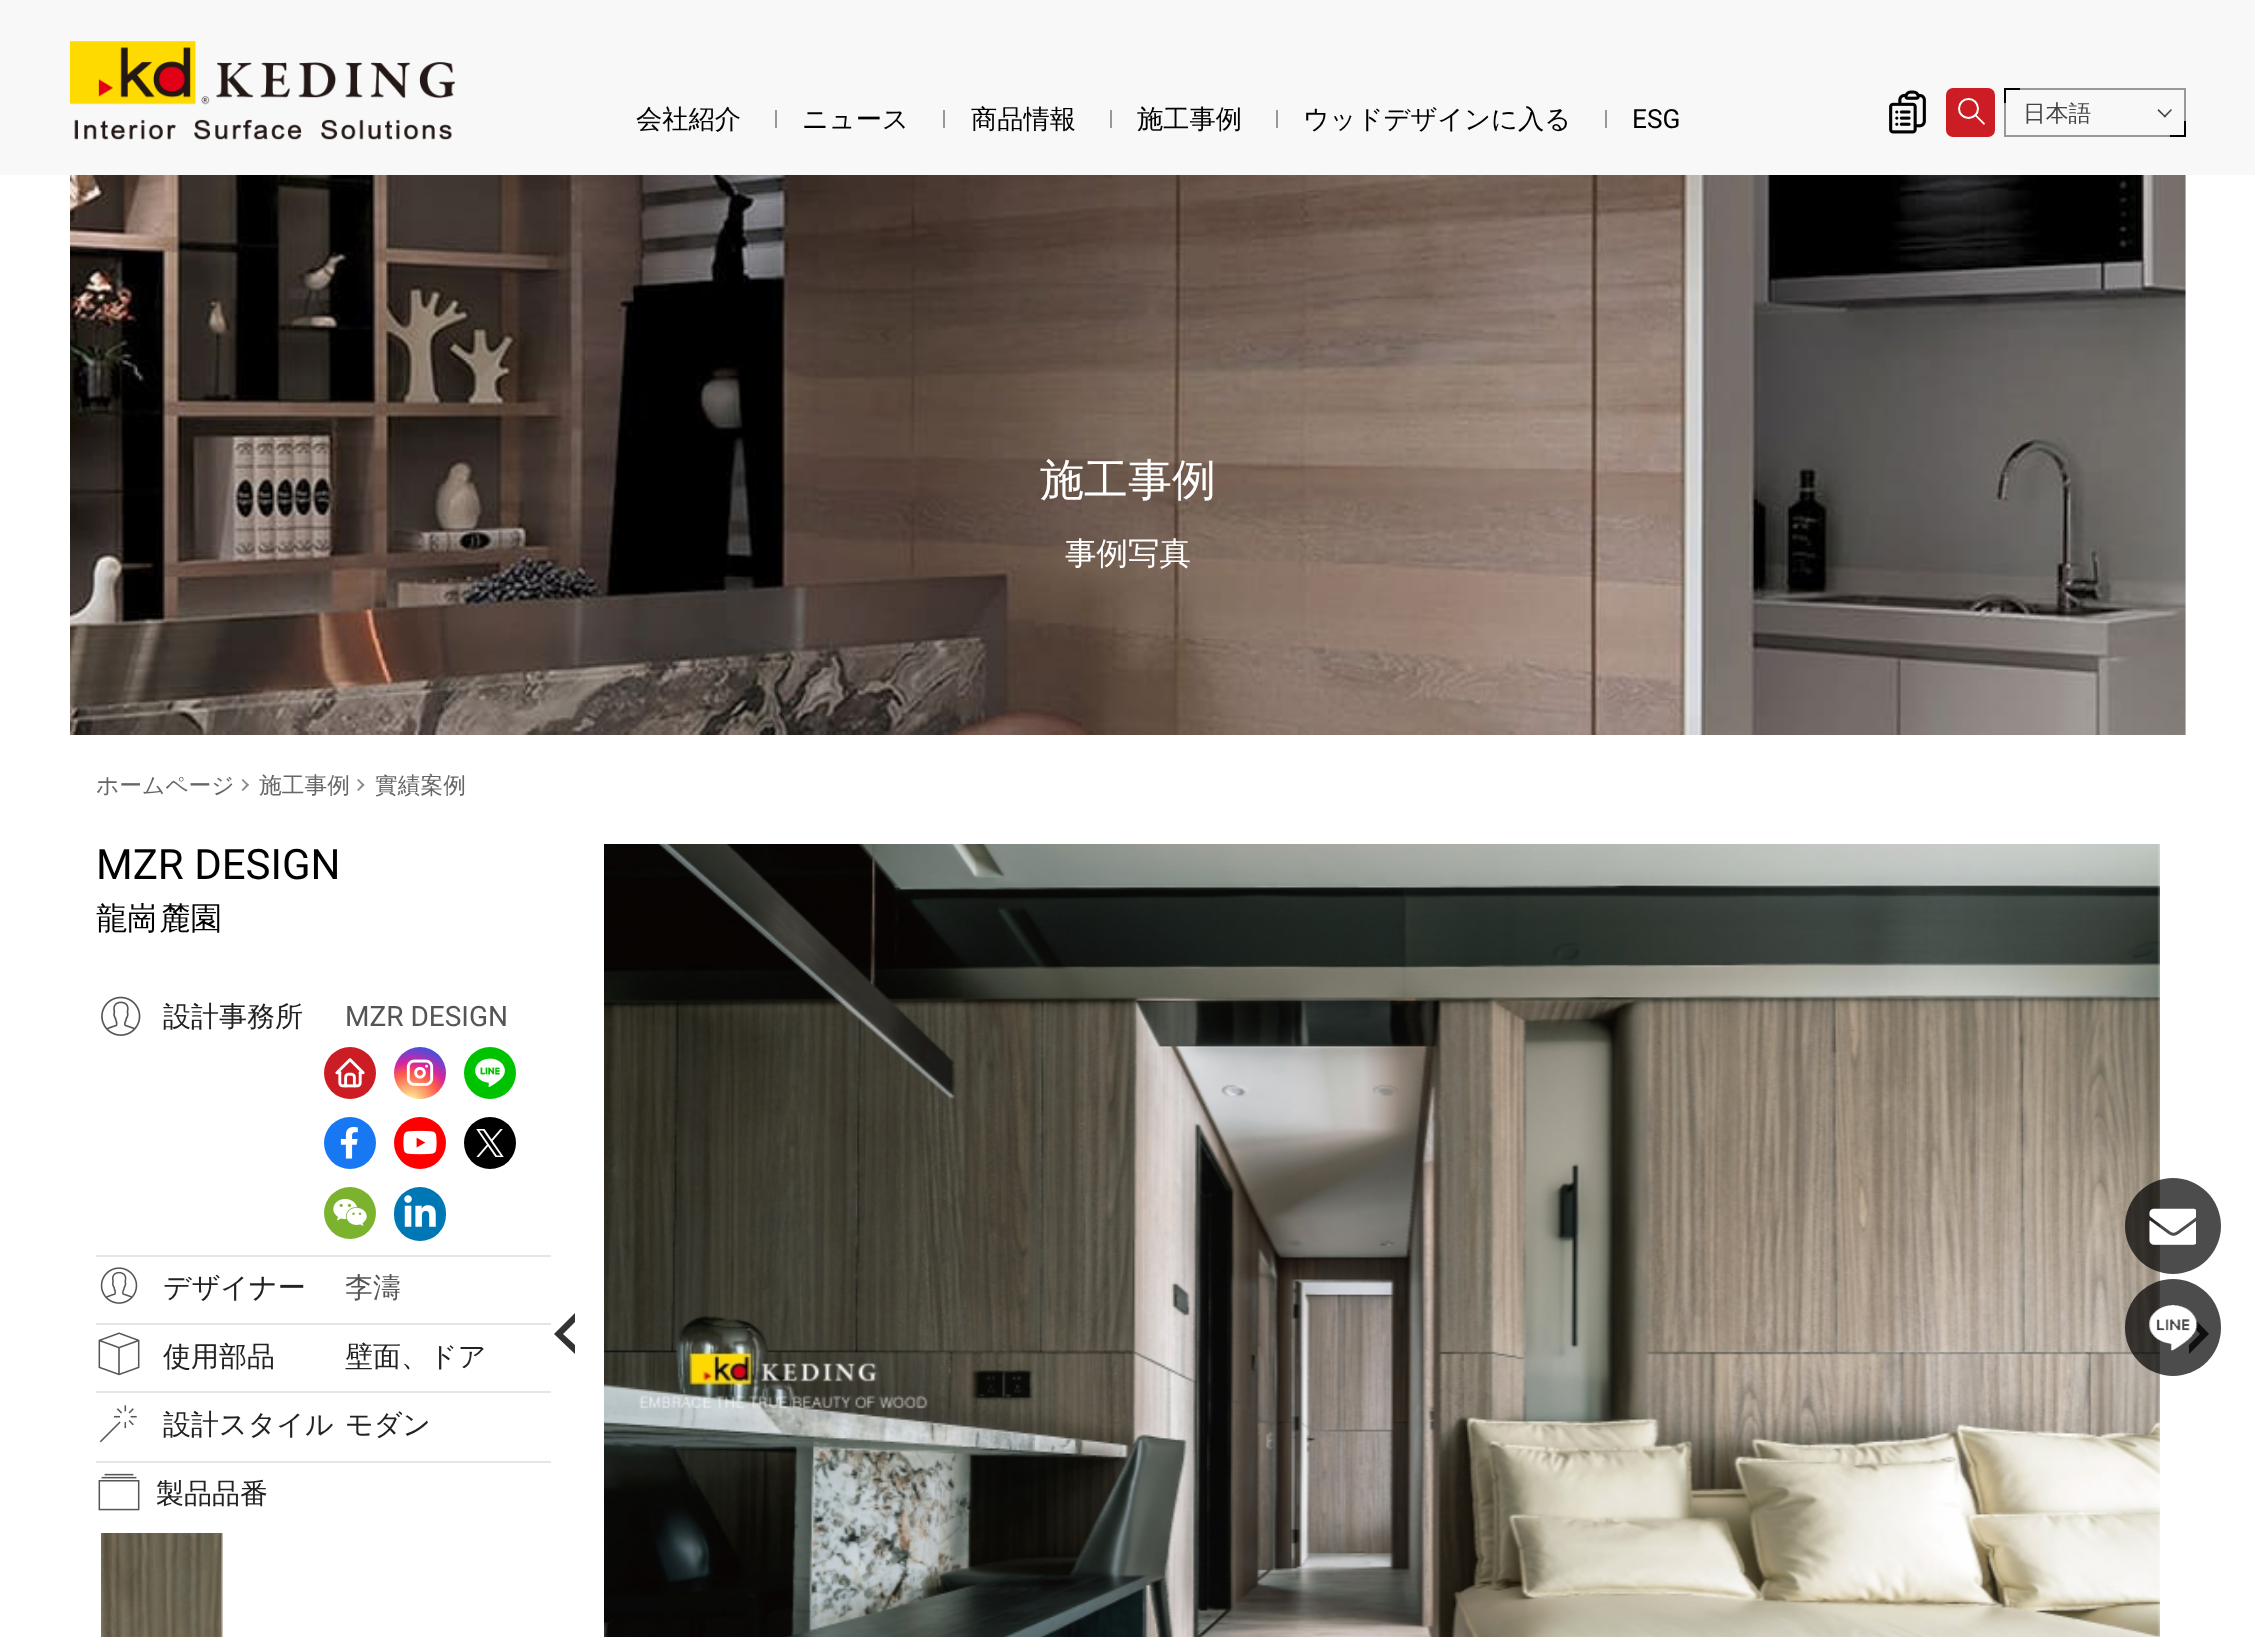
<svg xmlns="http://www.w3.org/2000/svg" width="2255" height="1637">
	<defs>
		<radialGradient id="g1" gradientUnits="userSpaceOnUse" cx="410" cy="1103" r="67"><stop offset="0" stop-color="#FDF497" /><stop offset="0.05" stop-color="#FDF497" /><stop offset="0.45" stop-color="#FD5949" /><stop offset="0.6" stop-color="#D6249F" /><stop offset="0.9" stop-color="#285AEB" /></radialGradient>
	</defs>
	<rect width="100%" height="100%" fill="#FFFFFF" />
	<rect x="0" y="0" width="2255" height="175" fill="#F8F8F8" />
	<text x="636" y="128" font-family="WenQuanYi Zen Hei" font-size="26.25" font-weight="500" fill="#000000">会社紹介</text>
	<rect x="775" y="110" width="2" height="18" fill="#999999" />
	<text x="802" y="128" font-family="WenQuanYi Zen Hei" font-size="26.25" font-weight="500" fill="#000000">ニュース</text>
	<rect x="943" y="110" width="2" height="18" fill="#999999" />
	<text x="971" y="128" font-family="WenQuanYi Zen Hei" font-size="26.25" font-weight="500" fill="#000000">商品情報</text>
	<rect x="1110" y="110" width="2" height="18" fill="#999999" />
	<text x="1137" y="128" font-family="WenQuanYi Zen Hei" font-size="26.25" font-weight="500" fill="#000000">施工事例</text>
	<rect x="1276" y="110" width="2" height="18" fill="#999999" />
	<text x="1303" y="128" font-family="WenQuanYi Zen Hei" font-size="26.25" font-weight="500" fill="#000000">ウッドデザインに入る</text>
	<rect x="1605" y="110" width="2" height="18" fill="#999999" />
	<text x="1632" y="128" font-family="Roboto" font-size="26.25" fill="#000000">ESG</text>
	<image x="70" y="41" width="385" height="99" href="assets/img1.png" />
	<image x="1889" y="90" width="37" height="44" href="assets/img2.png" />
	<rect x="1946" y="88" width="49" height="49" rx="7" fill="#CC1D24" />
	<circle cx="1968.5" cy="108.5" r="9.5" fill="none" stroke="#FFFFFF" stroke-width="2" />
	<path d="M1976.5 115L1985 123.5L1984 125L1975 116Z" fill="#FFFFFF" />
	<rect x="2005" y="89" width="180" height="47" fill="none" stroke="#999999" stroke-width="2" />
	<rect x="2004" y="88" width="16" height="2" fill="#010101" />
	<rect x="2004" y="88" width="2" height="15" fill="#010101" />
	<text x="2023" y="121" font-family="WenQuanYi Zen Hei" font-size="22.75" font-weight="500" fill="#444444">日本語</text>
	<path d="M2171 109L2172 110L2165 117.5L2163.5 116.5Z" fill="#444444" />
	<path d="M2158.5 109L2166 116.5L2165 117.5L2157.5 110.5Z" fill="#444444" />
	<rect x="2184" y="121" width="2" height="16" fill="#010101" />
	<rect x="2170" y="135" width="16" height="2" fill="#010101" />
	<image x="70" y="175" width="2116" height="560" href="assets/img3.png" />
	<text x="1040" y="495" font-family="WenQuanYi Zen Hei" font-size="44" font-weight="500" fill="#FFFFFF">施工事例</text>
	<text x="1065" y="564" font-family="WenQuanYi Zen Hei" font-size="31.5" font-weight="500" fill="#FFFFFF">事例写真</text>
	<text x="96" y="793" font-family="WenQuanYi Zen Hei" font-size="22.75" font-weight="500" fill="#666666">ホームページ</text>
	<path d="M241.5 780L243 779L249 785L247.5 786Z" fill="#888888" />
	<path d="M241.5 790L247.5 783.5L249 785L243 791Z" fill="#888888" />
	<text x="259" y="793" font-family="WenQuanYi Zen Hei" font-size="22.75" font-weight="500" fill="#666666">施工事例</text>
	<path d="M357 780L358.5 779L364.5 785L363 786Z" fill="#888888" />
	<path d="M357 790L363 783.5L364.5 785L358.5 791Z" fill="#888888" />
	<text x="375" y="793" font-family="WenQuanYi Zen Hei" font-size="22.75" font-weight="500" fill="#666666">實績案例</text>
	<text x="96" y="879" font-family="Roboto" font-size="42" fill="#000000">MZR DESIGN</text>
	<text x="96" y="929" font-family="WenQuanYi Zen Hei" font-size="31.5" font-weight="500" fill="#000000">龍崗麓園</text>
	<rect x="96" y="1255" width="455" height="2" fill="#E5E5E5" />
	<image x="101" y="996" width="40" height="40" href="assets/img4.png" />
	<text x="163" y="1026" font-family="WenQuanYi Zen Hei" font-size="28" font-weight="500" fill="#222222">設計事務所</text>
	<text x="345" y="1026" font-family="Roboto" font-size="28" fill="#555555">MZR DESIGN</text>
	<circle cx="350" cy="1073" r="26" fill="#CC1D24" />
	<image x="335" y="1058" width="30" height="30" href="assets/img5.png" />
	<circle cx="420" cy="1073" r="26" fill="url(#g1)" />
	<image x="406" y="1059" width="28" height="27" href="assets/img6.png" />
	<circle cx="490" cy="1073" r="26" fill="#00C300" />
	<image x="475" y="1058" width="30" height="29" href="assets/img7.png" />
	<circle cx="350" cy="1143" r="26" fill="#1877F2" />
	<image x="340" y="1127" width="18" height="32" href="assets/img8.png" />
	<circle cx="420" cy="1143" r="26" fill="#FF0000" />
	<image x="403" y="1130" width="34" height="25" href="assets/img9.png" />
	<circle cx="490" cy="1143" r="26" fill="#000000" />
	<image x="476" y="1129" width="28" height="28" href="assets/img10.png" />
	<circle cx="350" cy="1213" r="26" fill="#7BB32E" />
	<image x="333" y="1198" width="34" height="28" href="assets/img11.png" />
	<rect x="394" y="1187" width="52" height="54" rx="26" fill="#0077B5" />
	<image x="404" y="1195" width="32" height="32" href="assets/img12.png" />
	<rect x="96" y="1323" width="455" height="2" fill="#E5E5E5" />
	<image x="100" y="1267" width="38" height="37" href="assets/img13.png" />
	<text x="163" y="1297" font-family="WenQuanYi Zen Hei" font-size="28" font-weight="500" fill="#222222">デザイナー</text>
	<text x="345" y="1297" font-family="WenQuanYi Zen Hei" font-size="28" font-weight="500" fill="#555555">李濤</text>
	<rect x="96" y="1391" width="455" height="2" fill="#E5E5E5" />
	<image x="98" y="1332" width="42" height="44" href="assets/img14.png" />
	<g font-family="WenQuanYi Zen Hei" font-size="28" font-weight="500" fill="#222222">
		<text x="163" y="1366">使用部品</text>
		<text x="345" y="1366">壁面、ドア</text>
	</g>
	<rect x="96" y="1461" width="455" height="2" fill="#E5E5E5" />
	<image x="99" y="1405" width="38" height="38" href="assets/img15.png" />
	<g font-family="WenQuanYi Zen Hei" font-size="28" font-weight="500" fill="#222222">
		<text x="163" y="1434">設計スタイル</text>
		<text x="345" y="1434">モダン</text>
	</g>
	<image x="98" y="1473" width="42" height="38" href="assets/img16.png" />
	<text x="156" y="1503" font-family="WenQuanYi Zen Hei" font-size="28" font-weight="500" fill="#222222">製品品番</text>
	<image x="101" y="1533" width="122" height="104" href="assets/img17.png" />
	<path d="M575 1313V1322L563 1334L575 1345V1354L554 1334Z" fill="#333333" />
	<image x="604" y="844" width="1556" height="793" href="assets/img18.png" />
	<path d="M2189 1313V1322L2200 1334L2189 1345V1354L2209 1334Z" fill="#333333" />
	<circle cx="2173" cy="1226" r="48" fill="#000000" fill-opacity="0.7" />
	<image x="2149" y="1208" width="47" height="37" href="assets/img19.png" />
	<rect x="2125" y="1279" width="96" height="97" rx="48" fill="#000000" fill-opacity="0.7" />
	<image x="2149" y="1305" width="49" height="46" href="assets/img20.png" />
</svg>
